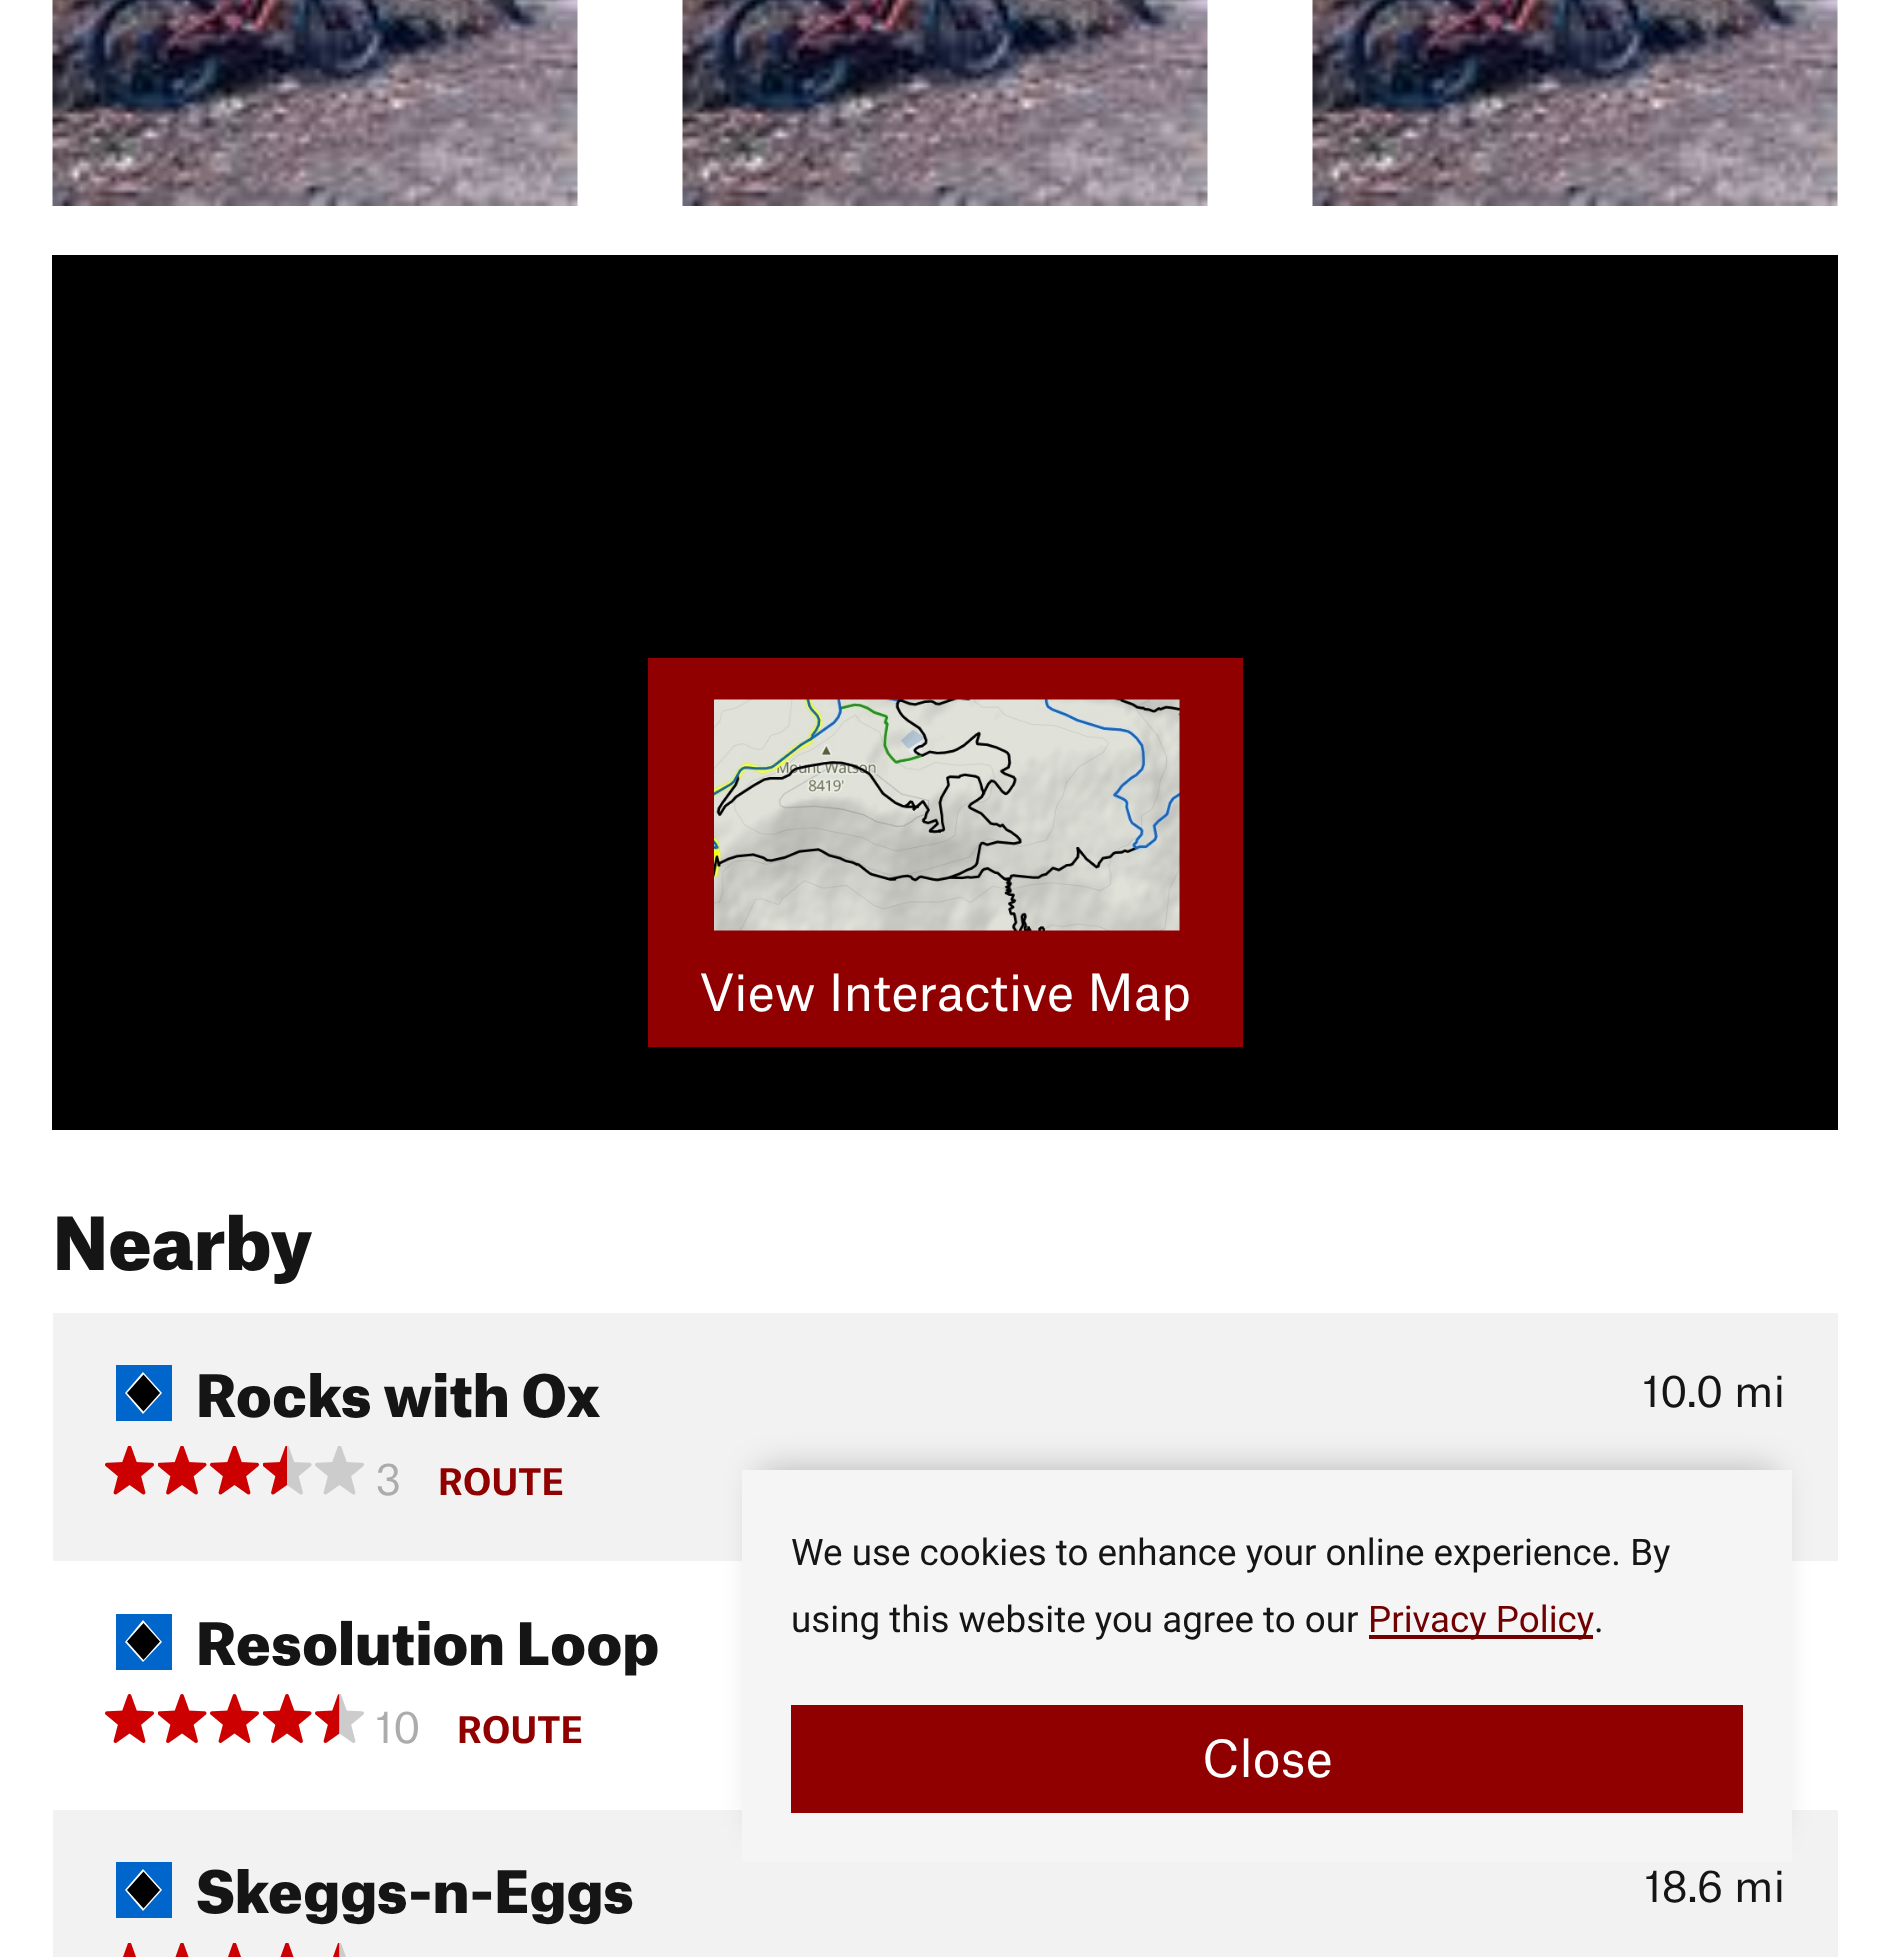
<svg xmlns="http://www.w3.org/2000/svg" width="1888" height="1957">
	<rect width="100%" height="100%" fill="#FFFFFF" />
	<image x="52" y="0" width="526" height="206" href="assets/img1.png" />
	<image x="682" y="0" width="526" height="206" href="assets/img1.png" />
	<image x="1312" y="0" width="526" height="206" href="assets/img2.png" />
	<rect x="52" y="255" width="1786" height="875" fill="#000000" />
	<rect x="648" y="658" width="595" height="389" fill="#900000" />
	<image x="714" y="699" width="466" height="232" href="assets/img3.png" />
	<text x="699" y="1011" font-family="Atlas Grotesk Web" font-size="49" fill="#FFFFFF">View Interactive Map</text>
	<text x="53" y="1270" font-family="Atlas Grotesk Web" font-size="70" font-weight="900" fill="#151515">Nearby</text>
	<rect x="53" y="1313" width="1785" height="248" fill="#F2F2F2" />
	<text x="196" y="1417" font-family="Atlas Grotesk Web" font-size="56" font-weight="900" fill="#151515">Rocks with Ox</text>
	<rect x="116" y="1365" width="56" height="56" fill="#0066CC" />
	<path d="M143 1372L125 1393L143 1414L162 1393Z" fill="#FFFFFF" />
	<path d="M143.5 1374.5L127 1393L143.5 1411.5L160 1393Z" fill="#000000" />
	<g font-family="Atlas Grotesk Web" font-size="42" fill="#151515">
		<text x="1642" y="1407">10.0</text>
		<text x="1734" y="1407">mi</text>
	</g>
	<image x="105" y="1446" width="49" height="49" href="assets/img4.png" />
	<image x="158" y="1446" width="49" height="49" href="assets/img5.png" />
	<image x="210" y="1446" width="49" height="49" href="assets/img4.png" />
	<image x="263" y="1446" width="49" height="49" href="assets/img6.png" />
	<image x="315" y="1446" width="49" height="49" href="assets/img7.png" />
	<text x="375" y="1495" font-family="Atlas Grotesk Web" font-size="42" fill="#ACACAC">3</text>
	<text x="438" y="1495" font-family="Atlas Grotesk Web" font-size="35" font-weight="700" fill="#900000">ROUTE</text>
	<text x="196" y="1665" font-family="Atlas Grotesk Web" font-size="56" font-weight="900" fill="#151515">Resolution Loop</text>
	<rect x="116" y="1614" width="56" height="56" fill="#0066CC" />
	<path d="M143 1620L125 1642L143 1662L162 1642Z" fill="#FFFFFF" />
	<path d="M143.5 1623L127 1641.5L143.5 1660L160 1641.5Z" fill="#000000" />
	<image x="105" y="1694" width="49" height="49" href="assets/img8.png" />
	<image x="158" y="1694" width="49" height="49" href="assets/img9.png" />
	<image x="210" y="1694" width="49" height="49" href="assets/img8.png" />
	<image x="263" y="1694" width="49" height="49" href="assets/img9.png" />
	<image x="315" y="1694" width="49" height="49" href="assets/img10.png" />
	<text x="375" y="1743" font-family="Atlas Grotesk Web" font-size="42" fill="#ACACAC">10</text>
	<text x="457" y="1743" font-family="Atlas Grotesk Web" font-size="35" font-weight="700" fill="#900000">ROUTE</text>
	<rect x="53" y="1810" width="1785" height="147" fill="#F2F2F2" />
	<text x="196" y="1913" font-family="Atlas Grotesk Web" font-size="56" font-weight="900" fill="#151515">Skeggs-n-Eggs</text>
	<rect x="116" y="1862" width="56" height="56" fill="#0066CC" />
	<path d="M143 1869L125 1890L143 1911L162 1890Z" fill="#FFFFFF" />
	<path d="M143.5 1871.5L127 1890L143.5 1908.5L160 1890Z" fill="#000000" />
	<g font-family="Atlas Grotesk Web" font-size="42" fill="#151515">
		<text x="1644" y="1902">18.6</text>
		<text x="1734" y="1902">mi</text>
	</g>
	<image x="123" y="1943" width="13" height="14" href="assets/img11.png" />
	<image x="175" y="1943" width="14" height="14" href="assets/img12.png" />
	<image x="228" y="1943" width="13" height="14" href="assets/img11.png" />
	<image x="280" y="1943" width="14" height="14" href="assets/img12.png" />
	<image x="333" y="1943" width="13" height="14" href="assets/img13.png" />
	<rect x="760" y="1470" width="1015" height="357" fill="#000000" fill-opacity="0.25" filter="blur(17.5px)" />
	<rect x="742" y="1470" width="1050" height="392" fill="#F5F5F5" />
	<g font-family="Roboto" font-size="36.75" fill="#151515">
		<text x="791" y="1565">We use cookies to enhance your online experience. By</text>
		<text x="791" y="1632">using this website you agree to our</text>
	</g>
	<rect x="1369" y="1635" width="224" height="4" fill="#710100" />
	<text x="1368" y="1632" font-family="Roboto" font-size="36.75" fill="#710100">Privacy Policy</text>
	<text x="1594" y="1632" font-family="Roboto" font-size="36.75" fill="#151515">.</text>
	<rect x="791" y="1705" width="952" height="108" fill="#900000" />
	<text x="1202" y="1777" font-family="Atlas Grotesk Web" font-size="49" fill="#FFFFFF">Close</text>
</svg>
